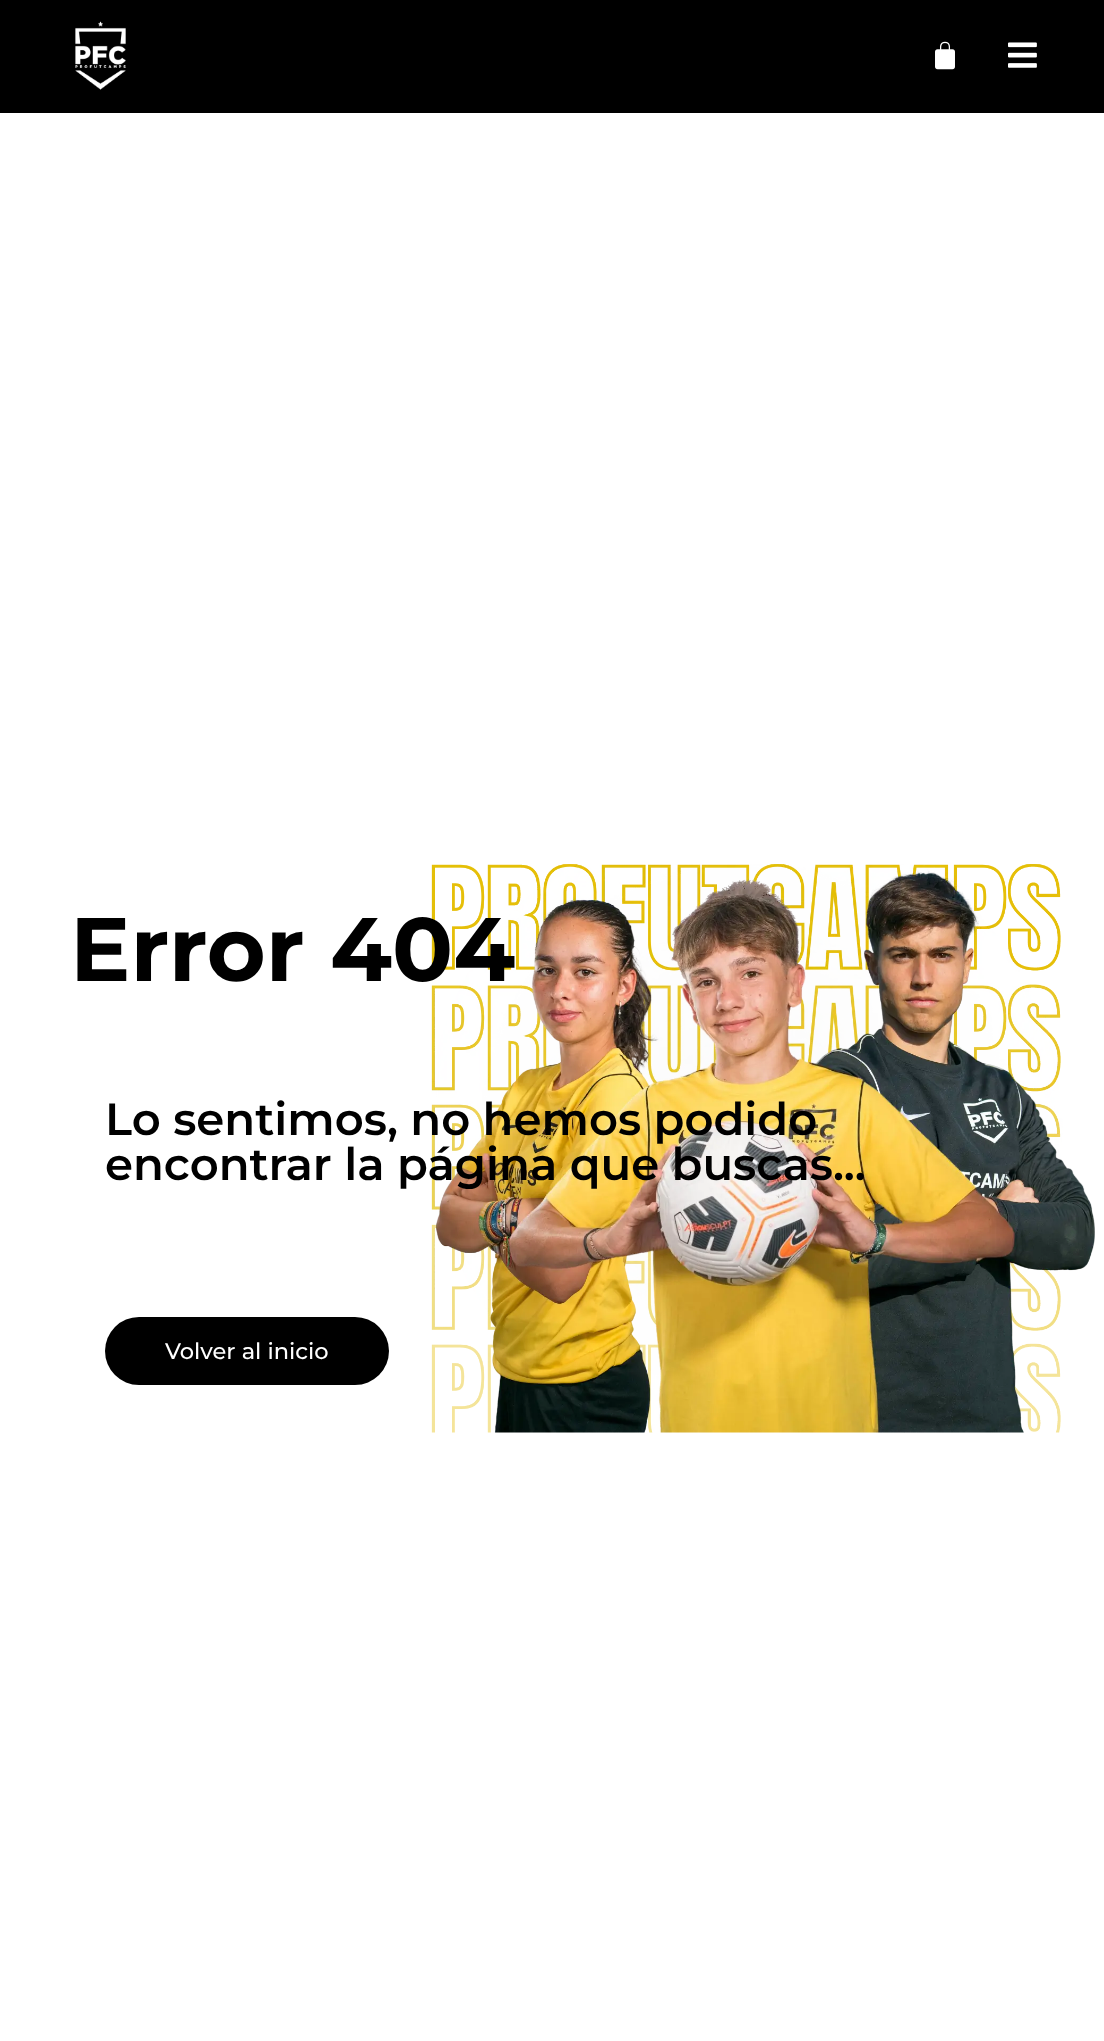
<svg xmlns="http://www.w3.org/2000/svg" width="1104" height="2041">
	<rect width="100%" height="100%" fill="#FFFFFF" />
	<rect x="0" y="0" width="1104" height="113" fill="#000000" />
	<image x="75" y="21" width="51" height="69" href="assets/img1.png" />
	<image x="935" y="41" width="20" height="29" href="assets/img2.png" />
	<image x="1008" y="42" width="29" height="26" href="assets/img3.png" />
	<image x="431" y="864" width="664" height="569" href="assets/img4.png" />
	<text x="70" y="981" font-family="Montserrat" font-size="90" font-weight="700" fill="#000000">Error 404</text>
	<g font-family="Montserrat" font-size="45" font-weight="600" fill="#000000">
		<text x="105" y="1135">Lo sentimos, no hemos podido</text>
		<text x="105" y="1180">encontrar la página que buscas...</text>
	</g>
	<rect x="105" y="1317" width="284" height="68" rx="34" fill="#000000" />
	<text x="165" y="1359" font-family="Montserrat" font-size="22.5" font-weight="500" fill="#FFFFFF">Volver al inicio</text>
</svg>
